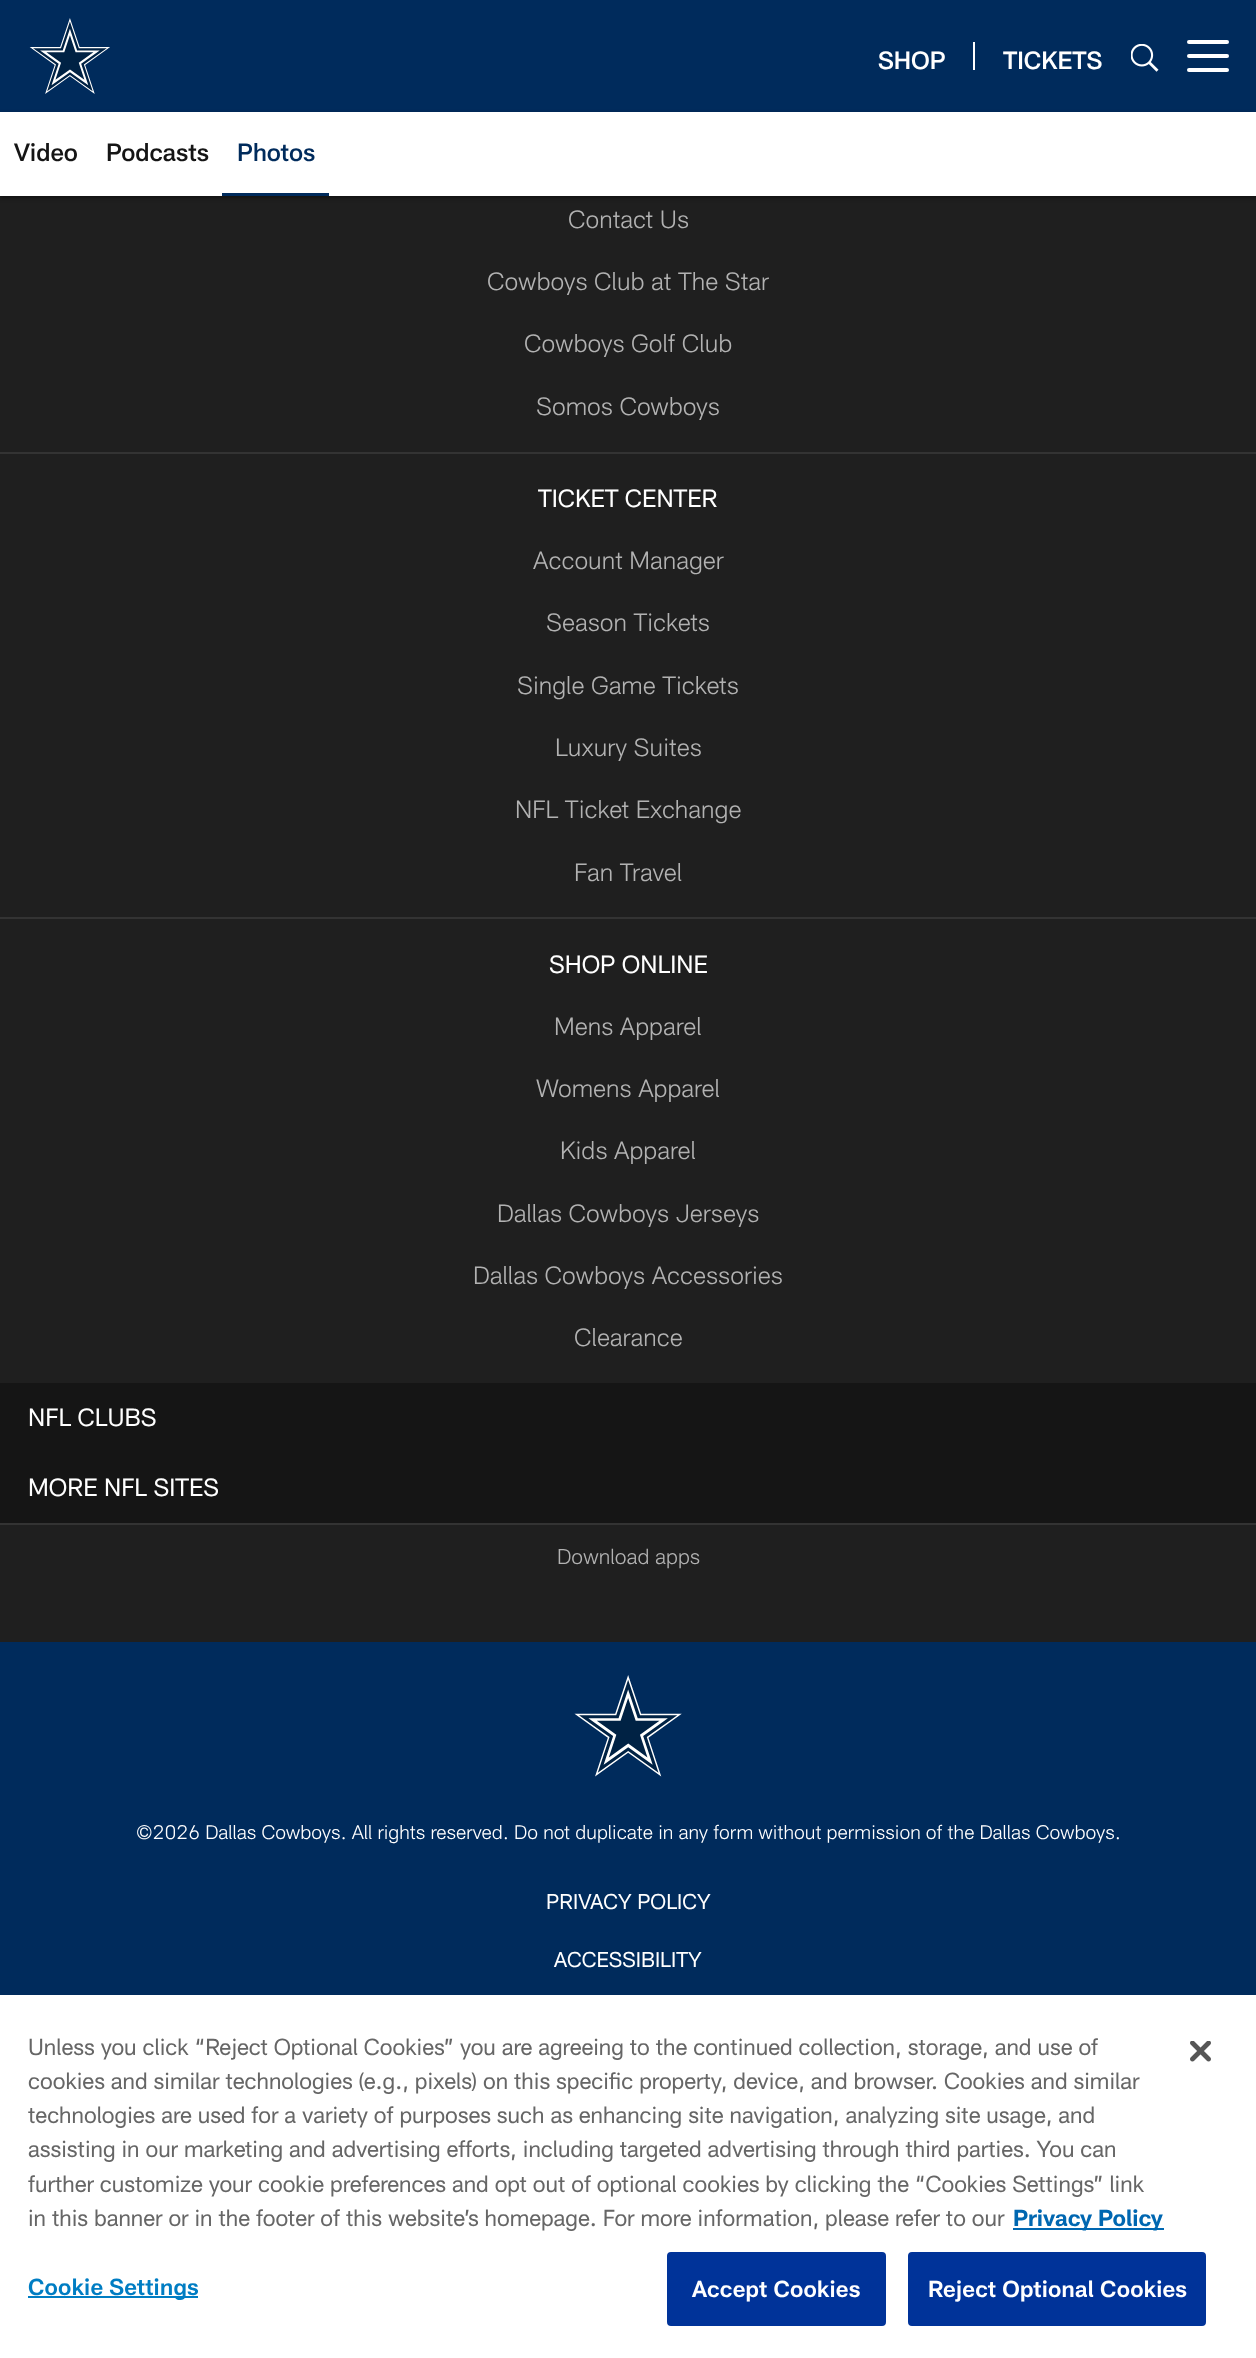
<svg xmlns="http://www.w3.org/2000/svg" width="1256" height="2358">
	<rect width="100%" height="100%" fill="#1F1F1F" />
	<rect x="0" y="0" width="1256" height="112" fill="#002B5C" />
	<image x="29" y="18" width="81" height="76" href="assets/img1.png" />
	<text x="878" y="69" font-family="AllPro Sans" font-size="24.5" font-weight="500" fill="#FFFFFF">SHOP</text>
	<rect x="973" y="42" width="2" height="28" fill="#FFFFFF" />
	<text x="1003" y="69" font-family="AllPro Sans" font-size="24.5" font-weight="500" fill="#FFFFFF">TICKETS</text>
	<image x="1131" y="44" width="28" height="28" href="assets/img2.png" />
	<rect x="1187" y="54" width="42" height="4" rx="2" fill="#FFFFFF" />
	<rect x="1187" y="40" width="42" height="4" rx="2" fill="#FFFFFF" />
	<rect x="1187" y="68" width="42" height="4" rx="2" fill="#FFFFFF" />
	<rect x="0" y="114" width="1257" height="84" fill="#000000" fill-opacity="0.47" filter="blur(2px)" />
	<rect x="0" y="112" width="1256" height="84" fill="#FFFFFF" />
	<g font-family="AllPro Sans" font-size="24.5" font-weight="500" fill="#151515">
		<text x="14" y="161">Video</text>
		<text x="106" y="161">Podcasts</text>
	</g>
	<rect x="222" y="193" width="107" height="3" fill="#002B5C" />
	<text x="237" y="161" font-family="AllPro Sans" font-size="24.5" font-weight="500" fill="#002B5C">Photos</text>
	<g font-family="AllPro Sans" font-size="24.5" font-weight="300" fill="#B2B2B2">
		<text x="568" y="228">Contact Us</text>
		<text x="487" y="290">Cowboys Club at The Star</text>
		<text x="524" y="352">Cowboys Golf Club</text>
		<text x="536" y="415">Somos Cowboys</text>
	</g>
	<rect x="0" y="452" width="1256" height="2" fill="#333333" />
	<text x="538" y="507" font-family="AllPro Sans" font-size="24.5" fill="#FFFFFF">TICKET CENTER</text>
	<g font-family="AllPro Sans" font-size="24.5" font-weight="300" fill="#B2B2B2">
		<text x="533" y="569">Account Manager</text>
		<text x="546" y="631">Season Tickets</text>
		<text x="517" y="694">Single Game Tickets</text>
		<text x="555" y="756">Luxury Suites</text>
		<text x="515" y="818">NFL Ticket Exchange</text>
		<text x="574" y="881">Fan Travel</text>
	</g>
	<rect x="0" y="917" width="1256" height="2" fill="#333333" />
	<text x="549" y="973" font-family="AllPro Sans" font-size="24.5" fill="#FFFFFF">SHOP ONLINE</text>
	<g font-family="AllPro Sans" font-size="24.5" font-weight="300" fill="#B2B2B2">
		<text x="554" y="1035">Mens Apparel</text>
		<text x="536" y="1097">Womens Apparel</text>
		<text x="560" y="1159">Kids Apparel</text>
		<text x="497" y="1222">Dallas Cowboys Jerseys</text>
		<text x="473" y="1284">Dallas Cowboys Accessories</text>
		<text x="574" y="1346">Clearance</text>
	</g>
	<rect x="0" y="1383" width="1256" height="140" fill="#151515" />
	<g font-family="AllPro Sans" font-size="24.5" fill="#FFFFFF">
		<text x="28" y="1426">NFL CLUBS</text>
		<text x="28" y="1496">MORE NFL SITES</text>
	</g>
	<rect x="0" y="1523" width="1256" height="2" fill="#333333" />
	<text x="557" y="1564" font-family="AllPro Sans" font-size="21" font-weight="300" fill="#B2B2B2">Download apps</text>
	<rect x="0" y="1642" width="1256" height="353" fill="#002B5C" />
	<image x="574" y="1675" width="108" height="102" href="assets/img3.png" />
	<text x="136" y="1839" font-family="AllPro Sans" font-size="19.25" font-weight="300" fill="#FFFFFF">©2026 Dallas Cowboys. All rights reserved. Do not duplicate in any form without permission of the Dallas Cowboys.</text>
	<g font-family="AllPro Sans" font-size="21" fill="#FFFFFF">
		<text x="546" y="1909">PRIVACY POLICY</text>
		<text x="554" y="1967">ACCESSIBILITY</text>
	</g>
	<rect x="0" y="1995" width="1256" height="363" fill="#FFFFFF" />
	<g font-family="AllPro Sans" font-size="22.75" fill="#666666">
		<text x="28" y="2055">Unless you click “Reject Optional Cookies” you are agreeing to the continued collection, storage, and use of</text>
		<text x="28" y="2089">cookies and similar technologies (e.g., pixels) on this specific property, device, and browser. Cookies and similar</text>
		<text x="28" y="2123">technologies are used for a variety of purposes such as enhancing site navigation, analyzing site usage, and</text>
		<text x="28" y="2157">assisting in our marketing and advertising efforts, including targeted advertising through third parties. You can</text>
		<text x="28" y="2192">further customize your cookie preferences and opt out of optional cookies by clicking the “Cookies Settings” link</text>
		<text x="28" y="2226">in this banner or in the footer of this website’s homepage. For more information, please refer to our</text>
	</g>
	<rect x="1013" y="2228" width="151" height="2" fill="#0067B1" />
	<text x="1013" y="2226" font-family="AllPro Sans" font-size="22.75" font-weight="700" fill="#0067B1">Privacy Policy</text>
	<rect x="28" y="2296" width="170" height="2" fill="#007DC3" />
	<text x="28" y="2295" font-family="AllPro Sans" font-size="22.75" font-weight="600" letter-spacing="0.25" fill="#007DC3">Cookie Settings</text>
	<rect x="668" y="2253" width="217" height="72" rx="3" fill="#003399" stroke="#003399" stroke-width="2" />
	<text x="692" y="2297" font-family="AllPro Sans" font-size="22.75" font-weight="600" letter-spacing="0.25" fill="#FFFFFF">Accept Cookies</text>
	<rect x="909" y="2253" width="296" height="72" rx="3" fill="#003399" stroke="#003399" stroke-width="2" />
	<text x="928" y="2297" font-family="AllPro Sans" font-size="22.75" font-weight="600" letter-spacing="0.25" fill="#FFFFFF">Reject Optional Cookies</text>
	<image x="1190" y="2041" width="21" height="21" href="assets/img4.png" />
</svg>
